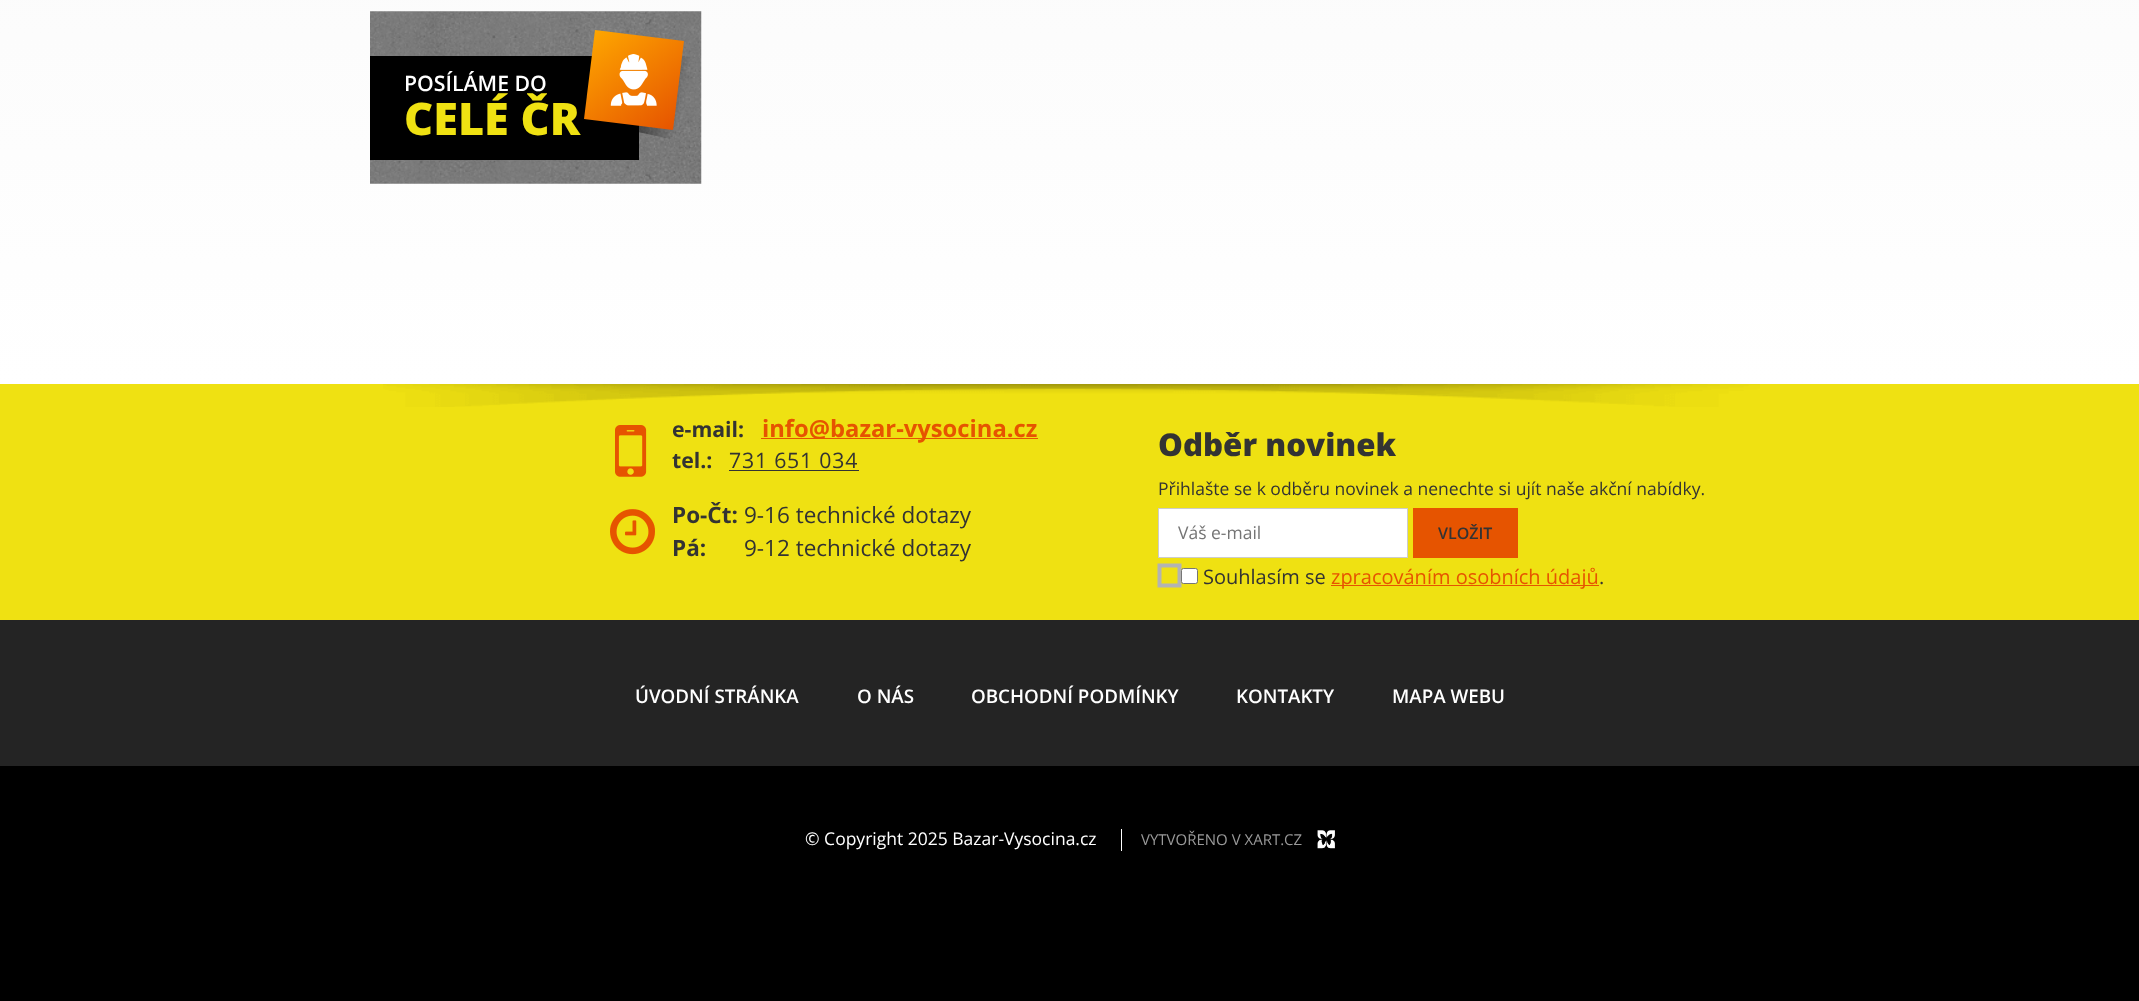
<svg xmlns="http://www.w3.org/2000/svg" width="2139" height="1001">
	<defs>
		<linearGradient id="g1" gradientUnits="userSpaceOnUse" x1="1070" y1="-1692" x2="1070" y2="384"><stop offset="0" stop-color="#EDEDED" /><stop offset="1" stop-color="#FFFFFF" /></linearGradient>
		<linearGradient id="g2" gradientUnits="userSpaceOnUse" x1="596" y1="80" x2="684" y2="99"><stop offset="0" stop-color="#000000" /><stop offset="1" stop-color="#000000" stop-opacity="0" /></linearGradient>
		<linearGradient id="g3" gradientUnits="userSpaceOnUse" x1="595" y1="30" x2="673" y2="130"><stop offset="0" stop-color="#FEA600" /><stop offset="1" stop-color="#E65400" /></linearGradient>
	</defs>
	<rect width="100%" height="100%" fill="#242424" />
	<rect x="0" y="0" width="2139" height="384" fill="url(#g1)" />
	<image x="370" y="11" width="332" height="173" href="assets/img1.png" />
	<rect x="370" y="56" width="269" height="104" fill="#000000" />
	<text x="404" y="91" font-family="Open Sans" font-size="21.25" font-weight="600" fill="#FFFFFF">POSÍLÁME DO</text>
	<path d="M605 39L693 58L675 140L587 121Z" fill="url(#g2)" />
	<path d="M595 30L684 41L673 130L584 119Z" fill="url(#g3)" />
	<image x="610" y="54" width="47" height="52" href="assets/img2.png" />
	<text x="404" y="135" font-family="Open Sans" font-size="45" font-weight="800" fill="#EFE112">CELÉ ČR</text>
	<rect x="0" y="384" width="2139" height="236" fill="#EFE112" />
	<image x="383" y="384" width="1377" height="23" href="assets/img3.png" />
	<image x="615" y="425" width="32" height="52" href="assets/img4.png" />
	<text x="672" y="437" font-family="Open Sans" font-size="21.25" font-weight="700" fill="#333333">e-mail:</text>
	<rect x="761" y="438" width="277" height="1" fill="#E65400" />
	<text x="762" y="437" font-family="Open Sans" font-size="23.75" font-weight="700" fill="#E65400">info@bazar-vysocina.cz</text>
	<text x="672" y="468" font-family="Open Sans" font-size="21.25" font-weight="700" fill="#333333">tel.:</text>
	<text x="729" y="468" font-family="Open Sans" font-size="21.25" letter-spacing="0.8" fill="#333333">731 651 034</text>
	<rect x="729" y="470" width="130" height="1" fill="#333333" />
	<image x="610" y="509" width="45" height="46" href="assets/img5.png" />
	<text x="672" y="523" font-family="Open Sans" font-size="22.5" font-weight="700" fill="#333333">Po-Čt:</text>
	<text x="744" y="523" font-family="Open Sans" font-size="22.5" fill="#333333">9-16 technické dotazy</text>
	<text x="672" y="556" font-family="Open Sans" font-size="22.5" font-weight="700" fill="#333333">Pá:</text>
	<text x="744" y="556" font-family="Open Sans" font-size="22.5" fill="#333333">9-12 technické dotazy</text>
	<text x="1158" y="456" font-family="Open Sans" font-size="31.25" font-weight="800" fill="#333333">Odběr novinek</text>
	<text x="1158" y="495" font-family="Open Sans" font-size="17.5" fill="#333333">Přihlašte se k odběru novinek a nenechte si ujít naše akční nabídky.</text>
	<rect x="1158.5" y="508.5" width="249" height="49" fill="#FFFFFF" stroke="#CCCCCC" />
	<text x="1178" y="539" font-family="Open Sans" font-size="17.5" fill="#757575">Váš e-mail</text>
	<rect x="1413" y="508" width="105" height="50" fill="#E65400" />
	<text x="1438" y="539" font-family="Open Sans" font-size="16" font-weight="600" fill="#333333">VLOŽIT</text>
	<path d="M1157.5 587.5V563.5H1181.5V587.5ZM1161.5 583.5H1177.5V567.5H1161.5Z" fill="#B3B3B3" />
	<rect x="1181.5" y="568.5" width="16" height="15" rx="2" fill="#FFFFFF" stroke="#767676" />
	<text x="1203" y="584" font-family="Open Sans" font-size="20" fill="#333333">Souhlasím se</text>
	<rect x="1331" y="585" width="268" height="1" fill="#E65400" />
	<text x="1331" y="584" font-family="Open Sans" font-size="20" fill="#E65400">zpracováním osobních údajů</text>
	<text x="1599" y="584" font-family="Open Sans" font-size="20" fill="#333333">.</text>
	<g font-family="Open Sans" font-size="18.75" font-weight="600" fill="#FFFFFF">
		<text x="635" y="703">ÚVODNÍ STRÁNKA</text>
		<text x="857" y="703">O NÁS</text>
		<text x="971" y="703">OBCHODNÍ PODMÍNKY</text>
		<text x="1236" y="703">KONTAKTY</text>
		<text x="1392" y="703">MAPA WEBU</text>
	</g>
	<rect x="0" y="766" width="2139" height="235" fill="#000000" />
	<text x="805" y="845" font-family="Open Sans" font-size="17.5" fill="#FFFFFF">© Copyright 2025 Bazar-Vysocina.cz</text>
	<rect x="1121" y="829" width="1" height="22" fill="#FFFFFF" />
	<text x="1141" y="845" font-family="Open Sans" font-size="15" fill="#999999">VYTVOŘENO V XART.CZ</text>
	<image x="1317" y="830" width="18" height="19" href="assets/img6.png" />
</svg>
